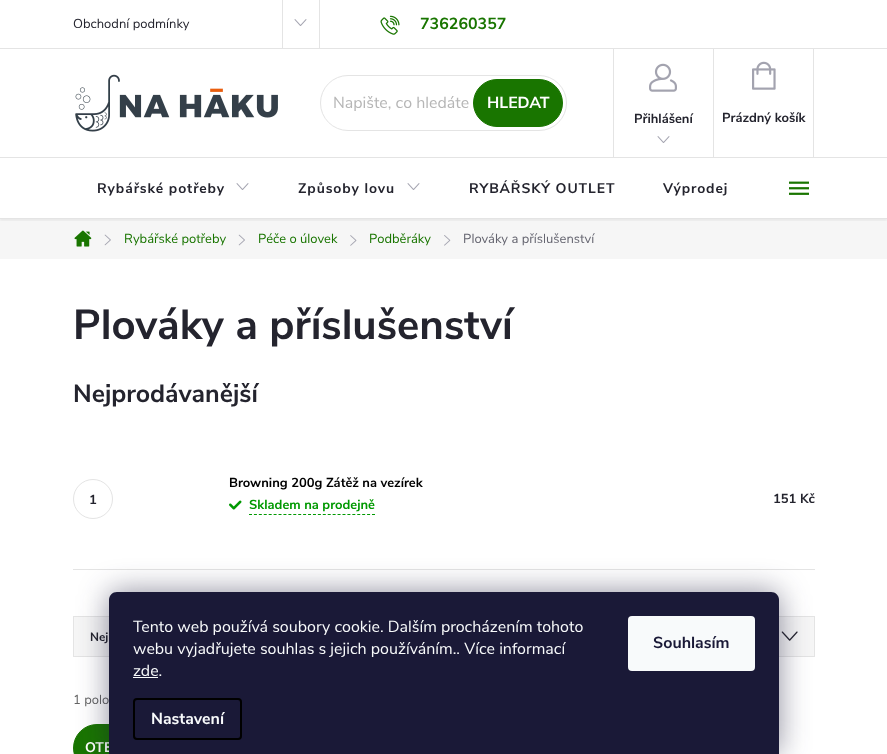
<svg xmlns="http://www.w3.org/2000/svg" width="887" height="754">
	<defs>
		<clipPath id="clip1"><rect x="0" y="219" width="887" height="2" /></clipPath>
	</defs>
	<rect width="100%" height="100%" fill="#FFFFFF" />
	<rect x="0" y="48" width="887" height="1" fill="#E4E4E4" />
	<text x="73" y="28" font-family="Nunito Sans" font-size="13" fill="#24242E">Obchodní podmínky</text>
	<rect x="319" y="0" width="1" height="48" fill="#E4E4E4" />
	<rect x="282" y="0" width="1" height="48" fill="#E4E4E4" />
	<image x="294" y="19" width="13" height="7" href="assets/img1.png" />
	<image x="380" y="15" width="20" height="20" href="assets/img2.png" />
	<text x="420" y="29" font-family="Nunito Sans" font-size="16" font-weight="700" fill="#197500">736260357</text>
	<image x="75" y="74" width="203" height="58" href="assets/img3.png" />
	<rect x="320.5" y="75.5" width="246" height="55" rx="27.5" fill="none" stroke="#E4E4E4" />
	<text x="333" y="108" font-family="Nunito Sans" font-size="16" fill="#B6B6B6">Napište, co hledáte</text>
	<rect x="473.5" y="79.5" width="89" height="47" rx="23.5" fill="#197500" stroke="#197500" />
	<text x="487" y="108" font-family="Nunito Sans" font-size="16" font-weight="700" fill="#FFFFFF">HLEDAT</text>
	<rect x="613" y="49" width="1" height="108" fill="#E4E4E4" />
	<image x="649" y="63" width="28" height="29" href="assets/img4.png" />
	<text x="634" y="123" font-family="Nunito Sans" font-size="13" font-weight="700" fill="#24242E">Přihlášení</text>
	<image x="657" y="136" width="13" height="7" href="assets/img1.png" />
	<rect x="813" y="49" width="1" height="108" fill="#E4E4E4" />
	<rect x="713" y="49" width="1" height="108" fill="#E4E4E4" />
	<image x="752" y="61" width="24" height="29" href="assets/img5.png" />
	<text x="722" y="122" font-family="Nunito Sans" font-size="13" font-weight="700" fill="#24242E">Prázdný košík</text>
	<rect x="0" y="219" width="887" height="40" fill="#F6F6F6" />
	<g clip-path="url(#clip1)">
		<rect x="0" y="159" width="887" height="62" fill="#000000" fill-opacity="0.05" filter="blur(1px)" />
	</g>
	<text x="97" y="193" font-family="Nunito Sans" font-size="14" font-weight="700" letter-spacing="0.9" fill="#24242E">Rybářské potřeby</text>
	<image x="236" y="183" width="13" height="7" href="assets/img1.png" />
	<text x="298" y="193" font-family="Nunito Sans" font-size="14" font-weight="700" letter-spacing="0.9" fill="#24242E">Způsoby lovu</text>
	<image x="407" y="183" width="13" height="7" href="assets/img1.png" />
	<g font-family="Nunito Sans" font-size="14" font-weight="700" letter-spacing="0.9" fill="#24242E">
		<text x="469" y="193">RYBÁŘSKÝ OUTLET</text>
		<text x="663" y="193">Výprodej</text>
	</g>
	<image x="789" y="181" width="20" height="14" href="assets/img6.png" />
	<rect x="0" y="157" width="887" height="1" fill="#E4E4E4" />
	<rect x="0" y="218" width="887" height="1" fill="#E4E4E4" />
	<image x="74" y="230" width="18" height="17" href="assets/img7.png" />
	<image x="104" y="234" width="7" height="12" href="assets/img8.png" />
	<text x="124" y="243" font-family="Nunito Sans" font-size="13" fill="#197500">Rybářské potřeby</text>
	<image x="238" y="234" width="7" height="12" href="assets/img9.png" />
	<text x="258" y="243" font-family="Nunito Sans" font-size="13" fill="#197500">Péče o úlovek</text>
	<image x="350" y="235" width="7" height="11" href="assets/img10.png" />
	<text x="369" y="243" font-family="Nunito Sans" font-size="13" fill="#197500">Podběráky</text>
	<image x="444" y="235" width="7" height="11" href="assets/img11.png" />
	<text x="463" y="243" font-family="Nunito Sans" font-size="13" fill="#656570">Plováky a příslušenství</text>
	<text x="73" y="339" font-family="Nunito Sans" font-size="42" font-weight="700" fill="#24242E">Plováky a příslušenství</text>
	<text x="73" y="402" font-family="Nunito Sans" font-size="25" font-weight="700" fill="#24242E">Nejprodávanější</text>
	<rect x="73" y="569" width="742" height="1" fill="#E4E4E4" />
	<circle cx="93" cy="499" r="19.5" fill="none" stroke="#E4E4E4" />
	<text x="89" y="504" font-family="Nunito Sans" font-size="13" font-weight="700" fill="#24242E">1</text>
	<text x="229" y="487" font-family="Nunito Sans" font-size="13" font-weight="700" fill="#000000">Browning 200g Zátěž na vezírek</text>
	<image x="229" y="500" width="13" height="10" href="assets/img12.png" />
	<text x="249" y="509" font-family="Nunito Sans" font-size="13" font-weight="700" fill="#009901">Skladem na prodejně</text>
	<path d="M249 514.5H375" fill="none" stroke="#009901" stroke-dasharray="3 1.92" />
	<text x="773" y="503" font-family="Nunito Sans" font-size="13" font-weight="700" fill="#24242E">151 Kč</text>
	<rect x="73" y="616" width="742" height="1" fill="#E4E4E4" />
	<rect x="74" y="617" width="740" height="39" fill="#F6F6F6" />
	<rect x="814" y="617" width="1" height="40" fill="#E4E4E4" />
	<rect x="73" y="656" width="742" height="1" fill="#E4E4E4" />
	<rect x="73" y="617" width="1" height="40" fill="#E4E4E4" />
	<text x="90" y="641" font-family="Nunito Sans" font-size="12" font-weight="700" fill="#24242E">Nej</text>
	<image x="781" y="631" width="17" height="10" href="assets/img13.png" />
	<text x="73" y="704" font-family="Nunito Sans" font-size="13" fill="#656565">1 polo</text>
	<rect x="73.5" y="724.5" width="123" height="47" rx="23.5" fill="#197500" stroke="#197500" />
	<text x="85" y="752" font-family="Nunito Sans" font-size="14" font-weight="700" fill="#FFFFFF">OTE</text>
	<rect x="109" y="592" width="670" height="162" rx="8" fill="#1B1939" fill-opacity="0.5" filter="blur(15px)" />
	<path d="M117 592H771C775.5 592 779 595.5 779 600V754H109V600C109 595.5 112.5 592 117 592Z" fill="#1A1937" />
	<g font-family="Nunito Sans" font-size="16" fill="#F8FAFB">
		<text x="133" y="632">Tento web používá soubory cookie. Dalším procházením tohoto</text>
		<text x="133" y="654">webu vyjadřujete souhlas s jejich používáním.. Více informací</text>
		<text x="133" y="676">zde.</text>
	</g>
	<rect x="133" y="677" width="25" height="1" fill="#F8FAFB" />
	<rect x="134" y="699" width="107" height="40" rx="3" fill="none" stroke="#000000" stroke-width="2" />
	<text x="151" y="724" font-family="Nunito Sans" font-size="16" font-weight="700" fill="#F8FAFB">Nastavení</text>
	<rect x="628" y="616" width="127" height="55" rx="4" fill="#F8FAFB" />
	<text x="653" y="648" font-family="Nunito Sans" font-size="16" font-weight="700" fill="#1A1937">Souhlasím</text>
</svg>
